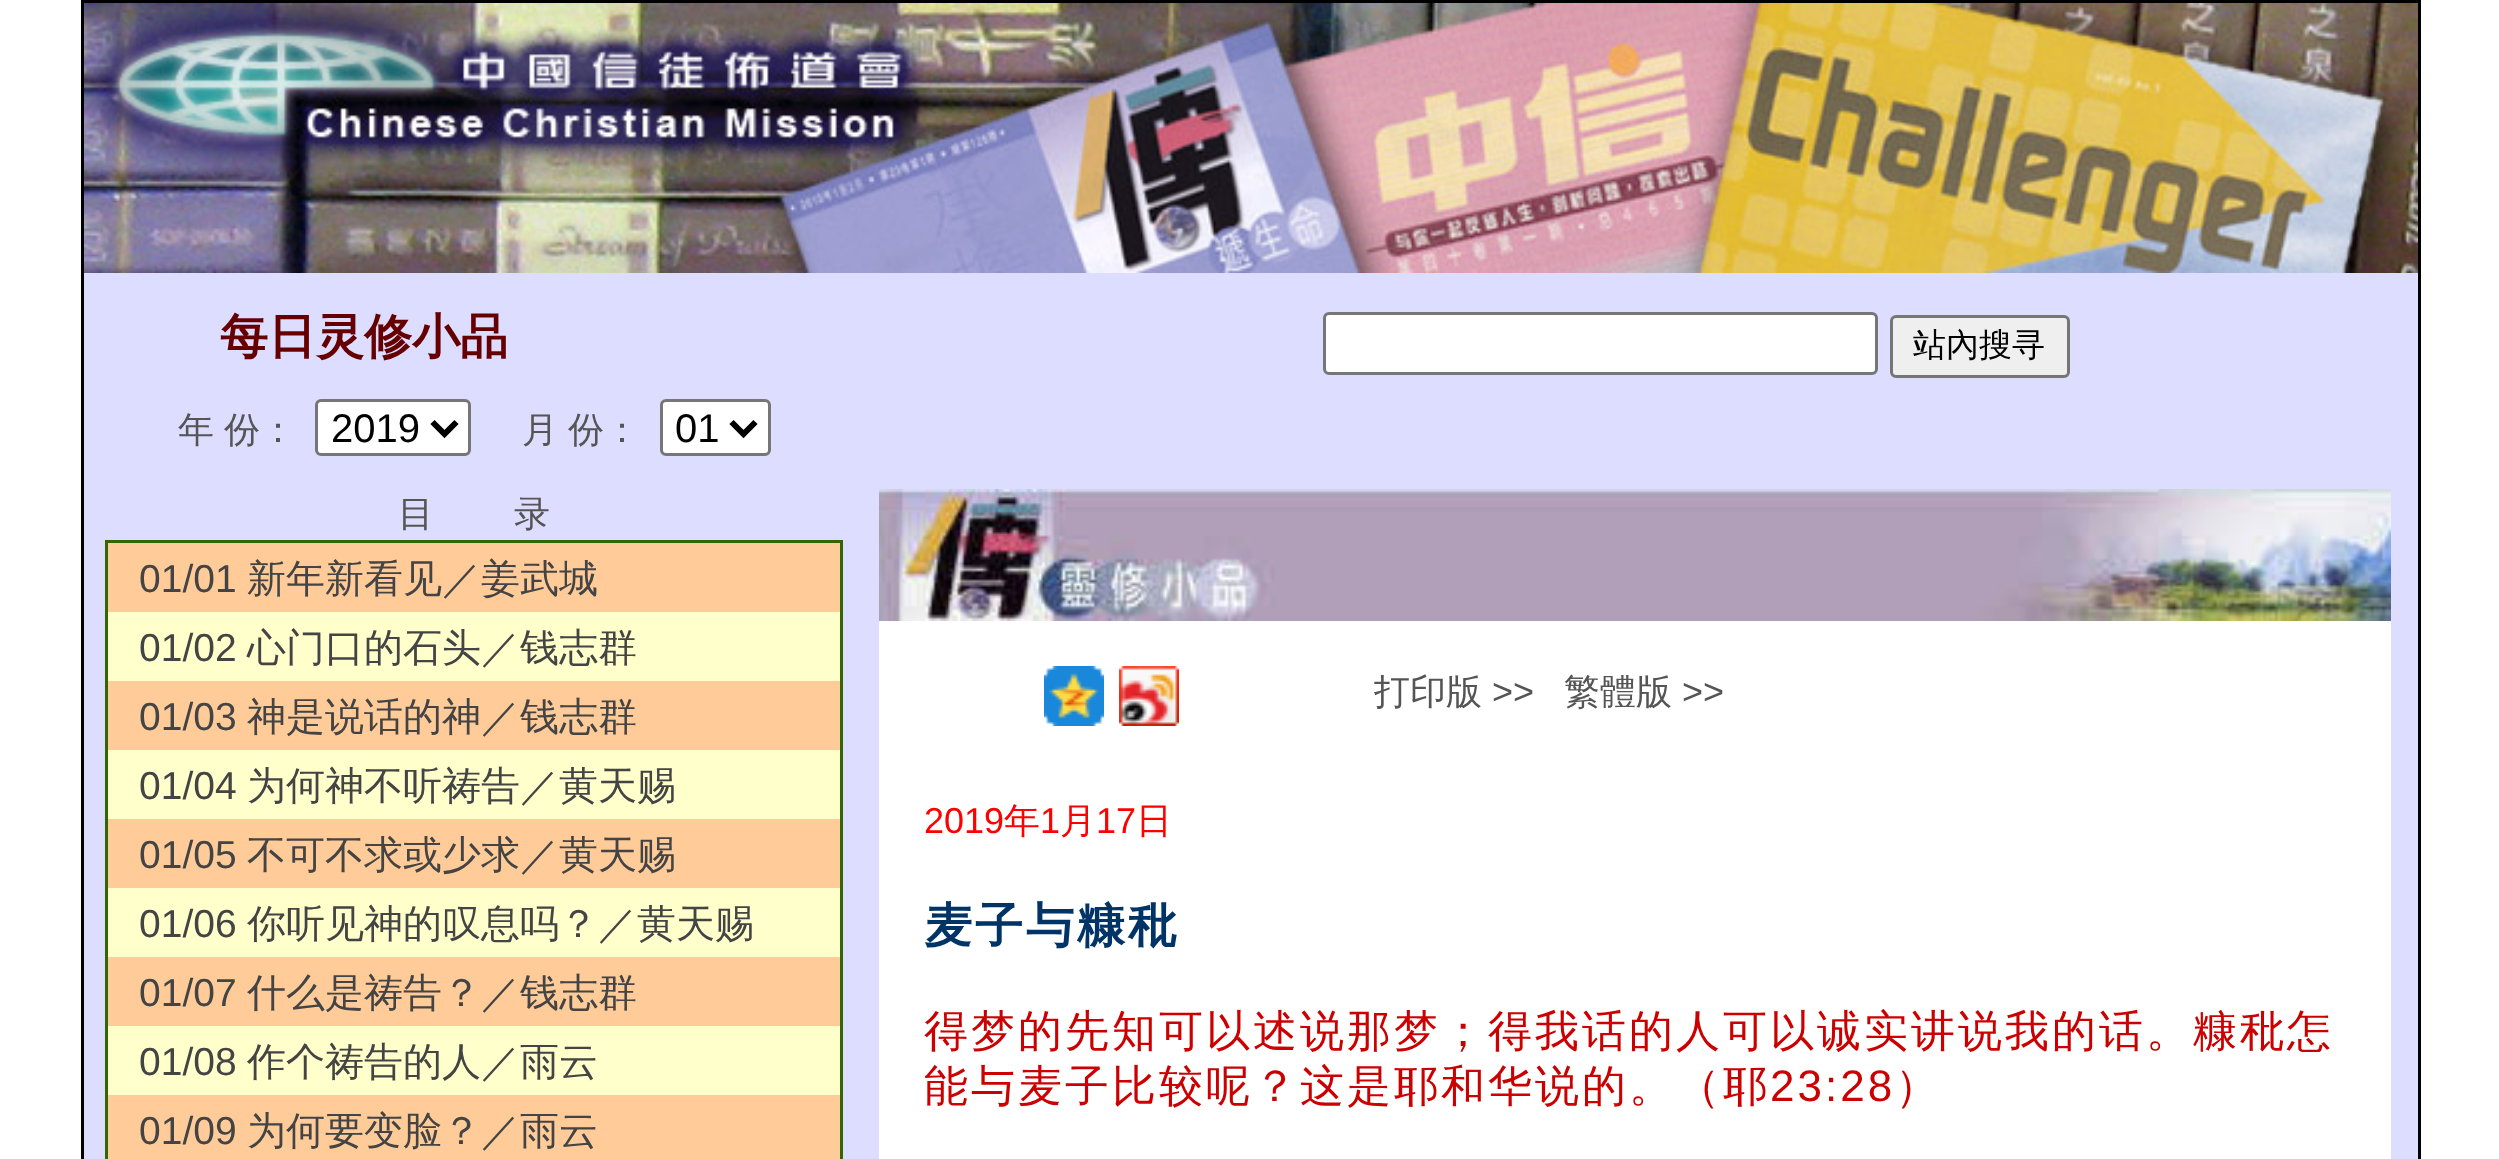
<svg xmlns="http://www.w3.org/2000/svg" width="2499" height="1159">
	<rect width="100%" height="100%" fill="#FFFFFF" />
	<rect x="84" y="273" width="2334" height="886" fill="#DDDDFF" />
	<rect x="82.5" y="1.5" width="2337" height="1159" fill="none" stroke="#000000" stroke-width="3" />
	<image x="84" y="3" width="2334" height="270" href="assets/img1.png" />
	<text x="220" y="353" font-family="WenQuanYi Zen Hei" font-size="48" font-weight="700" fill="#660000">每日灵修小品</text>
	<rect x="1324.5" y="313.5" width="552" height="60" rx="4.5" fill="#FFFFFF" stroke="#767676" stroke-width="3" />
	<rect x="1891.5" y="316.5" width="177" height="60" rx="4.5" fill="#EFEFEF" stroke="#767676" stroke-width="3" />
	<text x="1913" y="356" font-family="WenQuanYi Zen Hei" font-size="33" font-weight="500" fill="#000000">站內搜寻</text>
	<g font-family="WenQuanYi Zen Hei" font-size="36" font-weight="500" fill="#555555">
		<text x="178" y="442">年</text>
		<text x="224" y="442">份：</text>
	</g>
	<rect x="316.5" y="400.5" width="153" height="54" rx="4.5" fill="#FFFFFF" stroke="#767676" stroke-width="3" />
	<path d="M432.5 422L444.5 434L456.5 422" fill="none" stroke="#000000" stroke-width="6" />
	<text x="331" y="442" font-family="Liberation Sans" font-size="40" fill="#000000">2019</text>
	<g font-family="WenQuanYi Zen Hei" font-size="36" font-weight="500" fill="#555555">
		<text x="522" y="442">月</text>
		<text x="568" y="442">份：</text>
	</g>
	<rect x="661.5" y="400.5" width="108" height="54" rx="4.5" fill="#FFFFFF" stroke="#767676" stroke-width="3" />
	<path d="M731.5 422L743.5 434L755.5 422" fill="none" stroke="#000000" stroke-width="6" />
	<text x="675" y="442" font-family="Liberation Sans" font-size="40" fill="#000000">01</text>
	<g font-family="WenQuanYi Zen Hei" font-size="36" font-weight="500" fill="#555555">
		<text x="398" y="526">目</text>
		<text x="514" y="526">录</text>
	</g>
	<rect x="106.5" y="541.5" width="735" height="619" fill="#FFCC99" stroke="#336600" stroke-width="3" />
	<text x="139" y="592" font-family="Liberation Sans" font-size="39" fill="#444444">01/01</text>
	<text x="247" y="592" font-family="WenQuanYi Zen Hei" font-size="39" font-weight="500" fill="#444444">新年新看见／姜武城</text>
	<rect x="108" y="612" width="732" height="69" fill="#FFFFCC" />
	<text x="139" y="661" font-family="Liberation Sans" font-size="39" fill="#444444">01/02</text>
	<text x="247" y="661" font-family="WenQuanYi Zen Hei" font-size="39" font-weight="500" fill="#444444">心门口的石头／钱志群</text>
	<text x="139" y="730" font-family="Liberation Sans" font-size="39" fill="#444444">01/03</text>
	<text x="247" y="730" font-family="WenQuanYi Zen Hei" font-size="39" font-weight="500" fill="#444444">神是说话的神／钱志群</text>
	<rect x="108" y="750" width="732" height="69" fill="#FFFFCC" />
	<text x="139" y="799" font-family="Liberation Sans" font-size="39" fill="#444444">01/04</text>
	<text x="247" y="799" font-family="WenQuanYi Zen Hei" font-size="39" font-weight="500" fill="#444444">为何神不听祷告／黄天赐</text>
	<text x="139" y="868" font-family="Liberation Sans" font-size="39" fill="#444444">01/05</text>
	<text x="247" y="868" font-family="WenQuanYi Zen Hei" font-size="39" font-weight="500" fill="#444444">不可不求或少求／黄天赐</text>
	<rect x="108" y="888" width="732" height="69" fill="#FFFFCC" />
	<text x="139" y="937" font-family="Liberation Sans" font-size="39" fill="#444444">01/06</text>
	<text x="247" y="937" font-family="WenQuanYi Zen Hei" font-size="39" font-weight="500" fill="#444444">你听见神的叹息吗？／黄天赐</text>
	<text x="139" y="1006" font-family="Liberation Sans" font-size="39" fill="#444444">01/07</text>
	<text x="247" y="1006" font-family="WenQuanYi Zen Hei" font-size="39" font-weight="500" fill="#444444">什么是祷告？／钱志群</text>
	<rect x="108" y="1026" width="732" height="69" fill="#FFFFCC" />
	<text x="139" y="1075" font-family="Liberation Sans" font-size="39" fill="#444444">01/08</text>
	<text x="247" y="1075" font-family="WenQuanYi Zen Hei" font-size="39" font-weight="500" fill="#444444">作个祷告的人／雨云</text>
	<text x="139" y="1144" font-family="Liberation Sans" font-size="39" fill="#444444">01/09</text>
	<text x="247" y="1144" font-family="WenQuanYi Zen Hei" font-size="39" font-weight="500" fill="#444444">为何要变脸？／雨云</text>
	<rect x="879" y="621" width="1512" height="538" fill="#FFFFFF" />
	<image x="879" y="489" width="1512" height="132" href="assets/img2.png" />
	<image x="1044" y="666" width="60" height="60" href="assets/img3.png" />
	<image x="1119" y="666" width="60" height="60" href="assets/img4.png" />
	<text x="1374" y="704" font-family="WenQuanYi Zen Hei" font-size="36" font-weight="500" fill="#555555">打印版</text>
	<text x="1492" y="704" font-family="Liberation Sans" font-size="36" fill="#555555">&gt;&gt;</text>
	<text x="1564" y="704" font-family="WenQuanYi Zen Hei" font-size="36" font-weight="500" fill="#555555">繁體版</text>
	<text x="1682" y="704" font-family="Liberation Sans" font-size="36" fill="#555555">&gt;&gt;</text>
	<text x="924" y="833" font-family="Liberation Sans" font-size="36" fill="#FF0000">2019</text>
	<text x="1004" y="833" font-family="WenQuanYi Zen Hei" font-size="36" font-weight="500" fill="#FF0000">年</text>
	<text x="1040" y="833" font-family="Liberation Sans" font-size="36" fill="#FF0000">1</text>
	<text x="1060" y="833" font-family="WenQuanYi Zen Hei" font-size="36" font-weight="500" fill="#FF0000">月</text>
	<text x="1096" y="833" font-family="Liberation Sans" font-size="36" fill="#FF0000">17</text>
	<text x="1136" y="833" font-family="WenQuanYi Zen Hei" font-size="36" font-weight="500" fill="#FF0000">日</text>
	<text x="924" y="942" font-family="WenQuanYi Zen Hei" font-size="48" font-weight="700" letter-spacing="3" fill="#003366">麦子与糠秕</text>
	<g font-family="WenQuanYi Zen Hei" font-size="44" font-weight="500" letter-spacing="3" fill="#CC0000">
		<text x="924" y="1046">得梦的先知可以述说那梦；得我话的人可以诚实讲说我的话。糠秕怎</text>
		<text x="924" y="1101">能与麦子比较呢？这是耶和华说的。（耶</text>
	</g>
	<text x="1770" y="1101" font-family="Liberation Sans" font-size="44" letter-spacing="3" fill="#CC0000">23:28</text>
	<text x="1895" y="1101" font-family="WenQuanYi Zen Hei" font-size="44" font-weight="500" letter-spacing="3" fill="#CC0000">）</text>
</svg>
